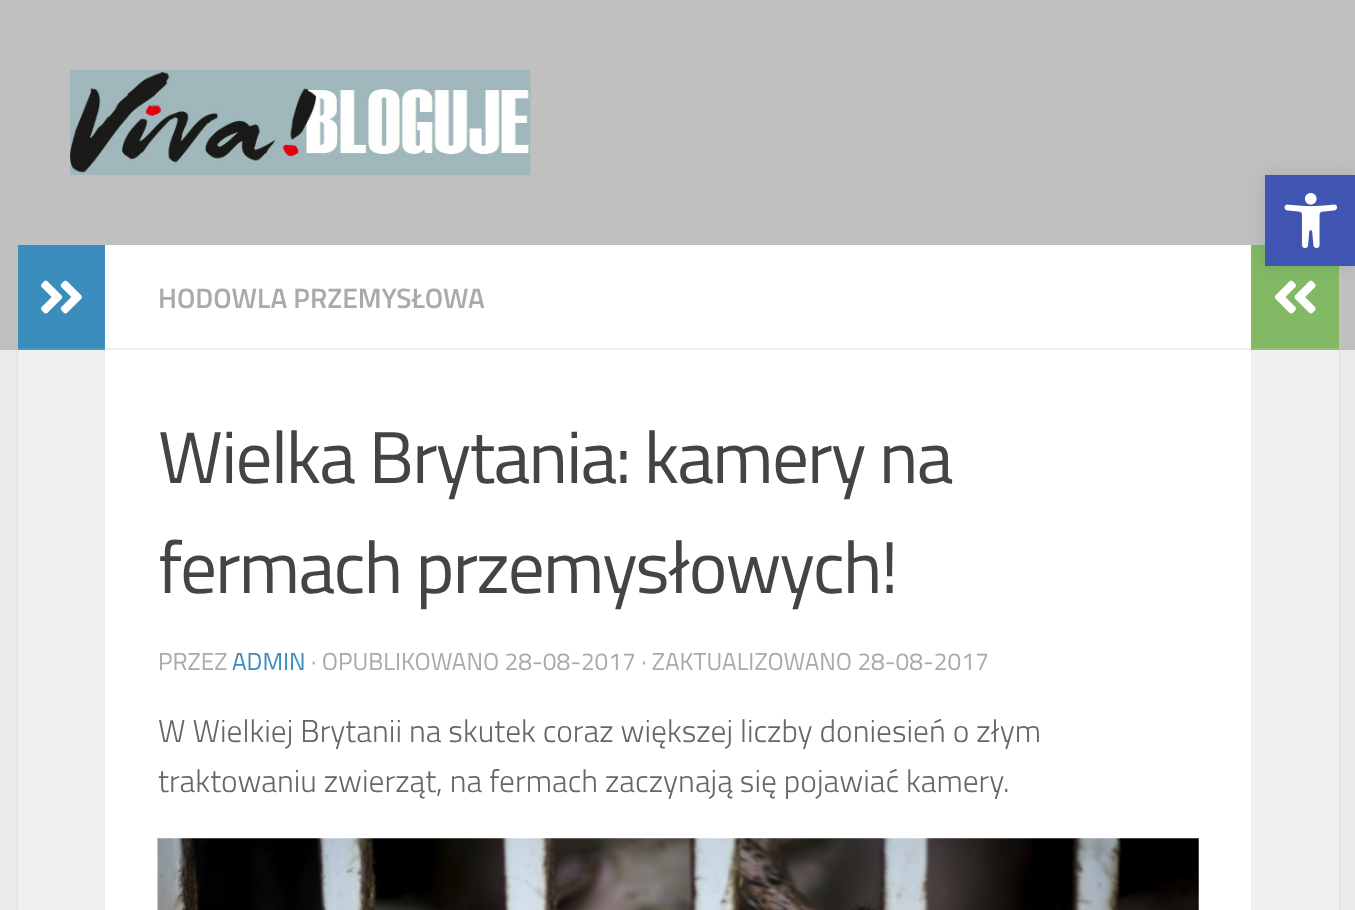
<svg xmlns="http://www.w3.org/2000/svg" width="1355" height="910">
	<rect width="100%" height="100%" fill="#EAEAEA" />
	<rect x="18" y="247" width="1321" height="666" fill="#000000" fill-opacity="0.1" filter="blur(1px)" />
	<rect x="0" y="0" width="1355" height="350" fill="#C0C0C0" />
	<rect x="105" y="245" width="1146" height="665" fill="#FFFFFF" />
	<rect x="1251" y="245" width="88" height="103" fill="#82B965" />
	<image x="1274" y="280" width="42" height="34" href="assets/img5.png" />
	<rect x="1265" y="175" width="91" height="91" fill="#000000" fill-opacity="0.1" filter="blur(9px)" />
	<rect x="1265" y="175" width="90" height="91" fill="#4054B2" />
	<image x="1284" y="193" width="54" height="56" href="assets/img1.png" />
	<image x="70" y="70" width="461" height="105" href="assets/img2.png" />
	<rect x="18" y="350" width="87" height="560" fill="#F0F0F0" />
	<rect x="18" y="245" width="87" height="103" fill="#3B8DBD" />
	<rect x="18" y="348" width="87" height="2" fill="#4F98C4" />
	<image x="41" y="280" width="41" height="34" href="assets/img3.png" />
	<rect x="105" y="348" width="1146" height="2" fill="#EEEEEE" />
	<text x="158" y="308" font-family="Titillium Web" font-size="28" font-weight="600" fill="#AAAAAA">HODOWLA PRZEMYSŁOWA</text>
	<g font-family="Titillium Web" font-size="73.4" letter-spacing="-1.75" fill="#444444">
		<text x="158" y="483">Wielka Brytania: kamery na</text>
		<text x="158" y="593">fermach przemysłowych!</text>
	</g>
	<text x="158" y="670" font-family="Titillium Web" font-size="24.5" fill="#AAAAAA">PRZEZ</text>
	<text x="232" y="670" font-family="Titillium Web" font-size="24.5" fill="#3B8DBD">ADMIN</text>
	<text x="311" y="670" font-family="Titillium Web" font-size="24.5" fill="#AAAAAA">· OPUBLIKOWANO 28-08-2017 · ZAKTUALIZOWANO 28-08-2017</text>
	<g font-family="Titillium Web" font-size="31.5" font-weight="300" fill="#666666">
		<text x="158" y="742">W Wielkiej Brytanii na skutek coraz większej liczby doniesień o złym</text>
		<text x="158" y="792">traktowaniu zwierząt, na fermach zaczynają się pojawiać kamery.</text>
	</g>
	<image x="157" y="838" width="1042" height="72" href="assets/img4.png" />
	<rect x="1251" y="348" width="88" height="2" fill="#8FC074" />
	<rect x="1251" y="350" width="88" height="560" fill="#F0F0F0" />
</svg>
